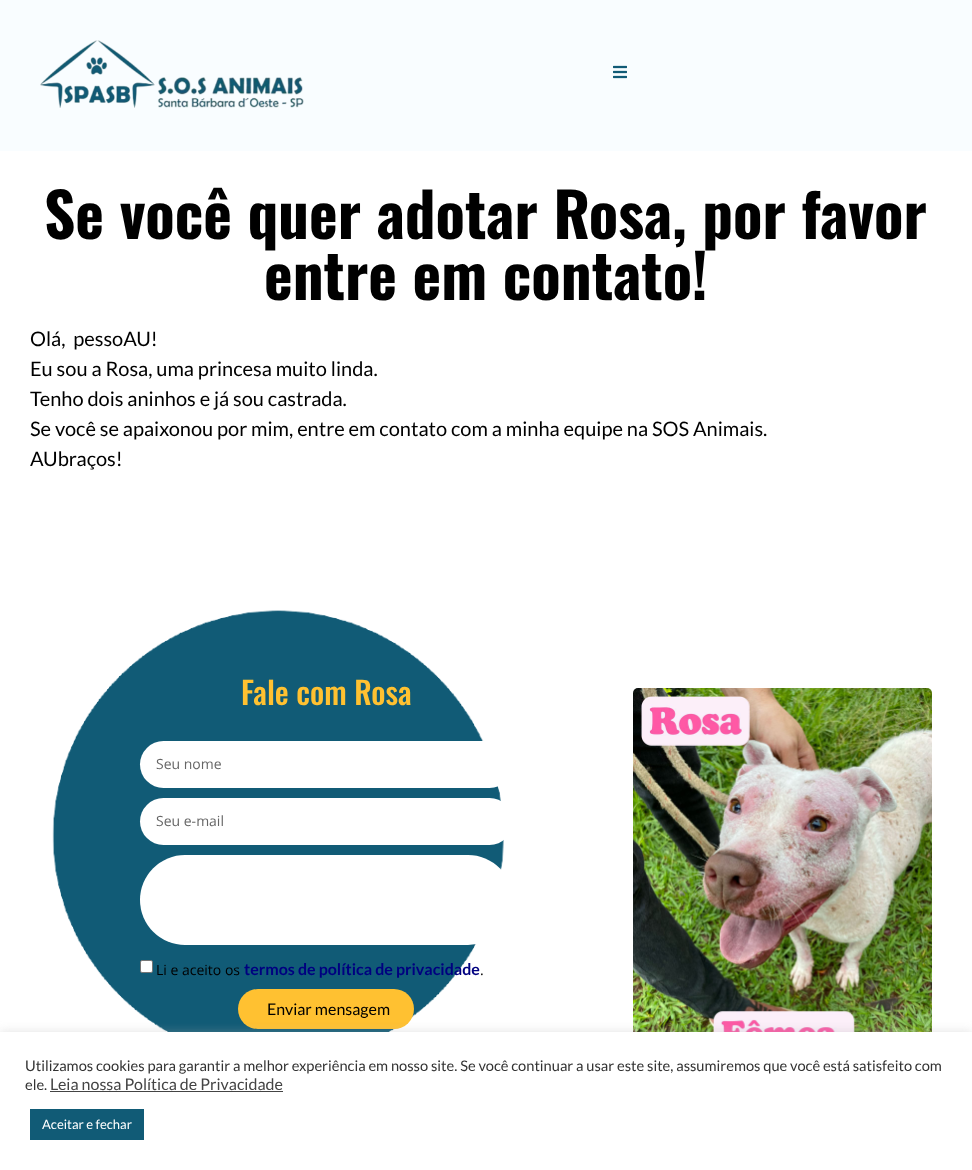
<svg xmlns="http://www.w3.org/2000/svg" width="972" height="1170">
	<rect width="100%" height="100%" fill="#FFFFFF" />
	<rect x="0" y="0" width="972" height="151" fill="#F9FDFF" />
	<image x="40" y="40" width="264" height="68" href="assets/img1.png" />
	<image x="613" y="65" width="14" height="14" href="assets/img2.png" />
	<g font-family="Oswald" font-size="61" font-weight="700" fill="#000000">
		<text x="44" y="239">Se você quer adotar Rosa, por favor</text>
		<text x="264" y="300">entre em contato!</text>
	</g>
	<g font-family="Lato" font-size="20" fill="#000000">
		<text x="30" y="346" xml:space="preserve">Olá,  pessoAU!</text>
		<text x="30" y="376">Eu sou a Rosa, uma princesa muito linda.</text>
		<text x="30" y="406">Tenho dois aninhos e já sou castrada.</text>
		<text x="30" y="436">Se você se apaixonou por mim, entre em contato com a minha equipe na SOS Animais.</text>
		<text x="30" y="466">AUbraços!</text>
	</g>
	<image x="52" y="610" width="452" height="422" href="assets/img3.png" />
	<text x="241" y="705" font-family="Oswald" font-size="31.25" font-weight="500" fill="#FFC131">Fale com Rosa</text>
	<rect x="140" y="741" width="373" height="47" rx="23.5" fill="#FFFFFF" />
	<text x="156" y="769" font-family="Open Sans" font-size="14" fill="#666666">Seu nome</text>
	<rect x="140" y="798" width="373" height="47" rx="23.5" fill="#FFFFFF" />
	<text x="156" y="826" font-family="Open Sans" font-size="14" fill="#666666">Seu e-mail</text>
	<rect x="140" y="855" width="373" height="90" rx="45" fill="#FFFFFF" />
	<rect x="140.5" y="960.5" width="12" height="12" rx="1.5" fill="#FFFFFF" stroke="#767676" />
	<text x="156" y="975" font-family="Open Sans" font-size="14" fill="#000000">Li e aceito os</text>
	<text x="244" y="975" font-family="Lato" font-size="16" font-weight="700" fill="#000080">termos de política de privacidade</text>
	<text x="480" y="975" font-family="Open Sans" font-size="14" fill="#000000">.</text>
	<rect x="238" y="989" width="176" height="40" rx="20" fill="#FFC131" />
	<text x="267" y="1015" font-family="Lato" font-size="16" fill="#000000">Enviar mensagem</text>
	<image x="633" y="688" width="299" height="344" href="assets/img4.png" />
	<rect x="0" y="1031" width="972" height="138" fill="#ACABAB" fill-opacity="0.3" filter="blur(5px)" />
	<rect x="0" y="1032" width="972" height="138" fill="#FFFFFF" />
	<g font-family="Lato" font-size="14.67" fill="#333333">
		<text x="25" y="1071">Utilizamos cookies para garantir a melhor experiência em nosso site. Se você continuar a usar este site, assumiremos que você está satisfeito com</text>
		<text x="25" y="1090">ele.</text>
	</g>
	<text x="50" y="1090" font-family="Lato" font-size="16" fill="#444444">Leia nossa Política de Privacidade</text>
	<rect x="50" y="1091" width="233" height="1" fill="#444444" />
	<rect x="30" y="1109" width="114" height="31" fill="#115B76" />
	<text x="42" y="1129" font-family="Lato" font-size="13" fill="#FFFFFF">Aceitar e fechar</text>
</svg>
